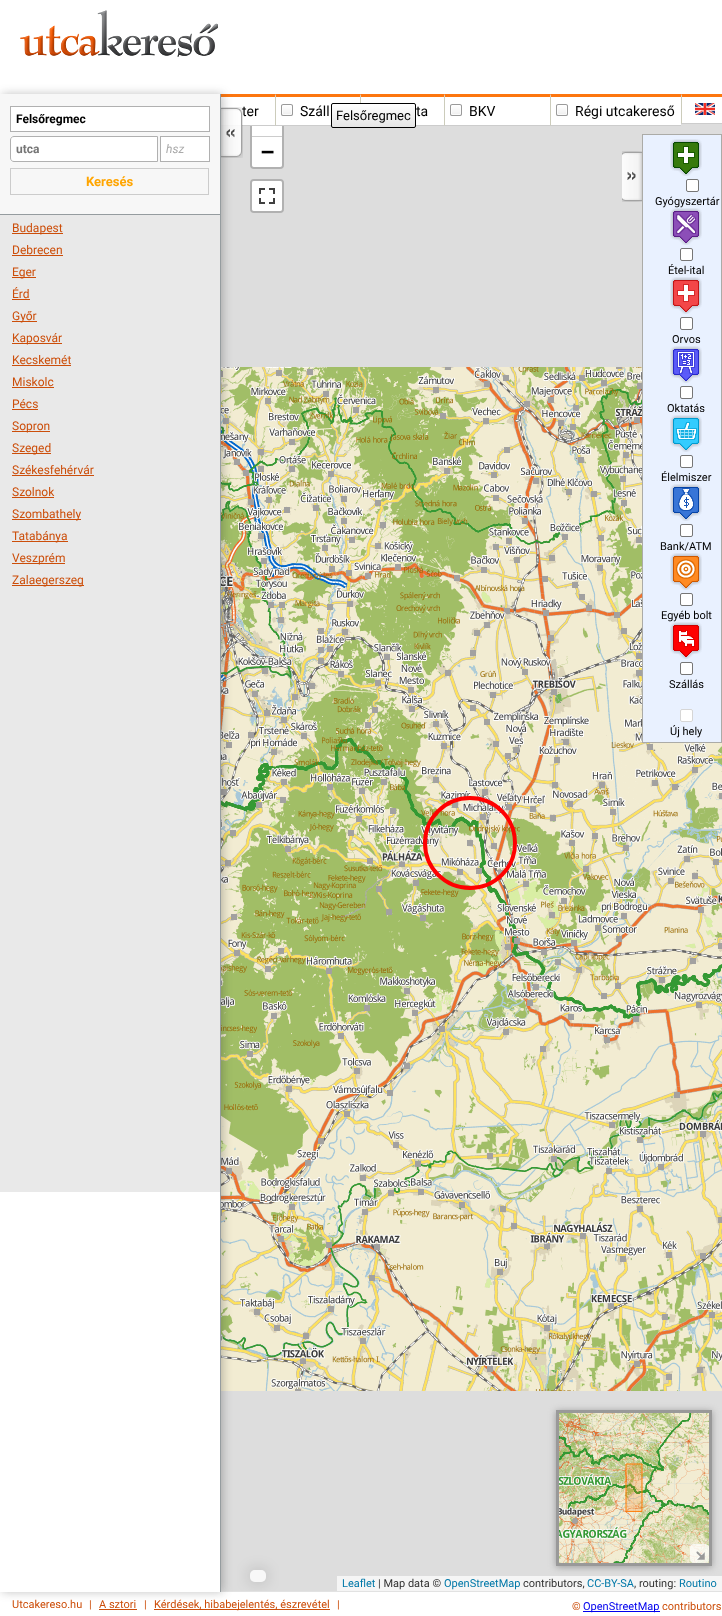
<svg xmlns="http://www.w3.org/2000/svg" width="722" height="1616">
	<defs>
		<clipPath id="clip1"><path d="M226 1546H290V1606H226ZM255 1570H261C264 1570 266 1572 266 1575V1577C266 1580 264 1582 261 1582H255C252 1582 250 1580 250 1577V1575C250 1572 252 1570 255 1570Z" clip-rule="evenodd" /></clipPath>
		<clipPath id="clip2"><rect x="331" y="103" width="85" height="25" rx="2" /></clipPath>
		<linearGradient id="g1" gradientUnits="userSpaceOnUse" x1="374" y1="104" x2="374" y2="127"><stop offset="0" stop-color="#FFFFFF" /><stop offset="1" stop-color="#E5E5E5" /></linearGradient>
	</defs>
	<rect width="100%" height="100%" fill="#DDDDDD" />
	<rect x="0" y="0" width="722" height="94" fill="#FFFFFF" />
	<image x="20" y="10" width="198" height="47" href="assets/img1.png" />
	<rect x="251" y="105" width="32" height="63" rx="3" fill="none" stroke="#B1B1B1" stroke-width="2" />
	<rect x="221" y="97" width="54" height="28" fill="#FFFFFF" />
	<rect x="221" y="125" width="110" height="1" fill="#CCCCCC" />
	<text x="242" y="116" font-family="Roboto" font-size="14" fill="#000000">ter</text>
	<image x="221" y="107" width="22" height="51" href="assets/img2.png" />
	<path d="M170 94H275V97H171Z" fill="#FD760F" />
	<rect x="275" y="94" width="406" height="31" fill="#FFFFFF" />
	<path d="M275 94H360V97H276Z" fill="#FD760F" />
	<path d="M275 126V94L276 97V125Z" fill="#CCCCBB" />
	<image x="281" y="104" width="12" height="12" href="assets/img3.png" />
	<text x="300" y="116" font-family="Roboto" font-size="14" fill="#000000">Száll</text>
	<path d="M360 94H444V97H361Z" fill="#FD760F" />
	<rect x="416" y="125" width="265" height="1" fill="#CCCCCC" />
	<path d="M360 126V94L361 97V125Z" fill="#CCCCBB" />
	<text x="416" y="116" font-family="Roboto" font-size="14" fill="#000000">ta</text>
	<path d="M444 94H550V97H445Z" fill="#FD760F" />
	<path d="M444 126V94L445 97V125Z" fill="#CCCCBB" />
	<image x="450" y="104" width="12" height="12" href="assets/img3.png" />
	<text x="469" y="116" font-family="Roboto" font-size="14" fill="#000000">BKV</text>
	<path d="M550 94H681V97H551Z" fill="#FD760F" />
	<path d="M550 126V94L551 97V125Z" fill="#CCCCBB" />
	<image x="556" y="104" width="12" height="12" href="assets/img3.png" />
	<text x="575" y="116" font-family="Roboto" font-size="14" fill="#000000">Régi utcakereső</text>
	<rect x="681" y="94" width="41" height="29" fill="#FFFFFF" />
	<path d="M681 94H722V97H682Z" fill="#FD760F" />
	<rect x="681" y="123" width="41" height="1" fill="#CCCCCC" />
	<path d="M681 124V94L682 97V123Z" fill="#CCCCBB" />
	<image x="695" y="103" width="20" height="12" href="assets/img4.png" />
	<image x="221" y="367" width="133" height="256" href="assets/img11.png" />
	<image x="221" y="623" width="133" height="256" href="assets/img14.png" />
	<image x="221" y="879" width="133" height="256" href="assets/img17.png" />
	<image x="221" y="1135" width="133" height="256" href="assets/img20.png" />
	<g clip-path="url(#clip1)">
		<rect x="250" y="1570" width="16" height="12" rx="5" fill="#000000" fill-opacity="0.2" filter="blur(7.5px)" />
	</g>
	<rect x="0" y="1592" width="722" height="24" fill="#FFFFFF" />
	<rect x="221" y="1591" width="501" height="1" fill="#E2E2E2" />
	<rect x="2" y="94" width="221" height="1498" fill="#323232" fill-opacity="0.3" filter="blur(5px)" />
	<rect x="220" y="94" width="1" height="1498" fill="#959C9F" />
	<rect x="0" y="1192" width="220" height="400" fill="#FFFFFF" />
	<rect x="0" y="94" width="220" height="120" fill="#F7F7F7" />
	<rect x="10.5" y="106.5" width="199" height="25" fill="#FFFFFF" stroke="#B0B0B0" />
	<text x="16" y="123" font-family="Roboto" font-size="12" font-weight="700" fill="#000000">Felsőregmec</text>
	<path d="M14 136.5H157.5V161.5H14C12 161.5 10.5 160 10.5 158V140C10.5 138 12 136.5 14 136.5Z" fill="#FFFFFF" stroke="#B0B0B0" />
	<text x="16" y="153" font-family="Roboto" font-size="12" font-weight="700" fill="#757575">utca</text>
	<rect x="160.5" y="136.5" width="49" height="25" fill="#FFFFFF" stroke="#B0B0B0" />
	<text x="166" y="153" font-family="Roboto" font-size="12" font-style="italic" fill="#AAAAAA">hsz</text>
	<rect x="10.5" y="168.5" width="198" height="26" fill="none" stroke="#CCCCCC" />
	<text x="86" y="186" font-family="Roboto" font-size="13" font-weight="700" fill="#FFA500">Keresés</text>
	<rect x="0" y="215" width="220" height="977" fill="#E9E9E9" />
	<rect x="0" y="214" width="220" height="1" fill="#959C9F" />
	<rect x="12" y="233" width="51" height="1" fill="#CC4E0A" />
	<g font-family="Roboto" font-size="12" fill="#CC4E0A">
		<text x="12" y="232">Budapest</text>
		<text x="12" y="254">Debrecen</text>
	</g>
	<rect x="12" y="255" width="51" height="1" fill="#CC4E0A" />
	<rect x="12" y="277" width="24" height="1" fill="#CC4E0A" />
	<g font-family="Roboto" font-size="12" fill="#CC4E0A">
		<text x="12" y="276">Eger</text>
		<text x="12" y="298">Érd</text>
	</g>
	<rect x="12" y="299" width="18" height="1" fill="#CC4E0A" />
	<rect x="12" y="321" width="25" height="1" fill="#CC4E0A" />
	<text x="12" y="320" font-family="Roboto" font-size="12" fill="#CC4E0A">Győr</text>
	<rect x="12" y="343" width="50" height="1" fill="#CC4E0A" />
	<g font-family="Roboto" font-size="12" fill="#CC4E0A">
		<text x="12" y="342">Kaposvár</text>
		<text x="12" y="364">Kecskemét</text>
	</g>
	<rect x="12" y="365" width="59" height="1" fill="#CC4E0A" />
	<text x="12" y="386" font-family="Roboto" font-size="12" fill="#CC4E0A">Miskolc</text>
	<rect x="12" y="387" width="42" height="1" fill="#CC4E0A" />
	<text x="12" y="408" font-family="Roboto" font-size="12" fill="#CC4E0A">Pécs</text>
	<rect x="12" y="409" width="26" height="1" fill="#CC4E0A" />
	<rect x="12" y="431" width="38" height="1" fill="#CC4E0A" />
	<text x="12" y="430" font-family="Roboto" font-size="12" fill="#CC4E0A">Sopron</text>
	<rect x="12" y="453" width="39" height="1" fill="#CC4E0A" />
	<g font-family="Roboto" font-size="12" fill="#CC4E0A">
		<text x="12" y="452">Szeged</text>
		<text x="12" y="474">Székesfehérvár</text>
	</g>
	<rect x="12" y="475" width="82" height="1" fill="#CC4E0A" />
	<text x="12" y="496" font-family="Roboto" font-size="12" fill="#CC4E0A">Szolnok</text>
	<rect x="12" y="497" width="42" height="1" fill="#CC4E0A" />
	<rect x="12" y="519" width="69" height="1" fill="#CC4E0A" />
	<text x="12" y="518" font-family="Roboto" font-size="12" fill="#CC4E0A">Szombathely</text>
	<rect x="12" y="541" width="56" height="1" fill="#CC4E0A" />
	<text x="12" y="540" font-family="Roboto" font-size="12" fill="#CC4E0A">Tatabánya</text>
	<rect x="12" y="563" width="53" height="1" fill="#CC4E0A" />
	<text x="12" y="562" font-family="Roboto" font-size="12" fill="#CC4E0A">Veszprém</text>
	<rect x="12" y="585" width="72" height="1" fill="#CC4E0A" />
	<text x="12" y="584" font-family="Roboto" font-size="12" fill="#CC4E0A">Zalaegerszeg</text>
	<g clip-path="url(#clip2)">
		<rect x="331" y="104" width="85" height="23" fill="url(#g1)" />
	</g>
	<rect x="331.5" y="103.5" width="84" height="24" rx="1.5" fill="none" stroke="#000000" />
	<text x="336" y="120" font-family="Roboto" font-size="13" fill="#000000">Felsőregmec</text>
	<rect x="252" y="126" width="30" height="10" fill="#FFFFFF" />
	<rect x="252" y="136" width="30" height="1" fill="#CCCCCC" />
	<path d="M252 137H282V165C282 166 281 167 280 167H254C253 167 252 166 252 165Z" fill="#FFFFFF" />
	<text x="261" y="159" font-family="DejaVu Sans Mono" font-size="22" font-weight="700" fill="#000000">−</text>
	<rect x="251" y="180" width="32" height="32" rx="3" fill="none" stroke="#B1B1B1" stroke-width="2" />
	<rect x="252" y="181" width="30" height="30" rx="2" fill="#FFFFFF" />
	<image x="259" y="188" width="16" height="16" href="assets/img5.png" />
	<rect x="250" y="1570" width="16" height="12" rx="5" fill="#FFFFFF" fill-opacity="0.8" />
	<rect x="556" y="1411" width="156" height="156" fill="#999999" filter="blur(3.5px)" />
	<rect x="557.5" y="1411.5" width="153" height="153" fill="none" stroke="#999999" stroke-width="3" />
	<image x="559" y="1413" width="95" height="60" href="assets/img6.png" />
	<image x="654" y="1413" width="55" height="60" href="assets/img7.png" />
	<image x="559" y="1473" width="95" height="90" href="assets/img8.png" />
	<image x="654" y="1473" width="55" height="90" href="assets/img9.png" />
	<rect x="626" y="1464" width="16" height="47" fill="#FF7800" fill-opacity="0.2" />
	<path d="M626 1511V1464H642V1511Z" fill="none" stroke="#FF7800" stroke-linecap="round" stroke-linejoin="round" />
	<rect x="690" y="1544" width="19" height="19" rx="4" fill="#FFFFFF" fill-opacity="0.75" />
	<image x="696" y="1551" width="9" height="9" href="assets/img10.png" />
	<rect x="337" y="1576" width="385" height="15" fill="#F5F5F5" />
	<text x="342" y="1587" font-family="Roboto" font-size="11" fill="#0078A8">Leaflet</text>
	<text x="378" y="1587" font-family="Roboto" font-size="11" fill="#333333">| Map data ©</text>
	<text x="444" y="1587" font-family="Roboto" font-size="11" fill="#0078A8">OpenStreetMap</text>
	<text x="523" y="1587" font-family="Roboto" font-size="11" fill="#333333">contributors,</text>
	<text x="587" y="1587" font-family="Roboto" font-size="11" fill="#0078A8">CC-BY-SA</text>
	<text x="634" y="1587" font-family="Roboto" font-size="11" fill="#333333">, routing:</text>
	<text x="679" y="1587" font-family="Roboto" font-size="11" fill="#0078A8">Routino</text>
	<image x="354" y="367" width="256" height="256" href="assets/img12.png" />
	<image x="610" y="367" width="32" height="256" href="assets/img13.png" />
	<image x="354" y="623" width="256" height="256" href="assets/img15.png" />
	<image x="610" y="623" width="112" height="256" href="assets/img16.png" />
	<image x="354" y="879" width="256" height="256" href="assets/img18.png" />
	<image x="610" y="879" width="112" height="256" href="assets/img19.png" />
	<image x="354" y="1135" width="256" height="256" href="assets/img21.png" />
	<image x="610" y="1135" width="112" height="256" href="assets/img22.png" />
	<path d="M425 843C425 868 445 888 470 888C495 888 515 868 515 843C515 818 495 798 470 798C445 798 425 818 425 843" fill="none" stroke="#FF0000" stroke-width="4" stroke-linecap="round" stroke-linejoin="round" />
	<rect x="642.5" y="134.5" width="79" height="608" fill="#E9F1FF" stroke="#ABABA7" />
	<image x="622" y="151" width="20" height="51" href="assets/img23.png" />
	<image x="670" y="139" width="32" height="37" href="assets/img24.png" />
	<rect x="686.5" y="179.5" width="12" height="12" rx="1.5" fill="#FFFFFF" stroke="#767676" />
	<text x="655" y="205" font-family="Roboto" font-size="11" fill="#000000">Gyógyszertár</text>
	<image x="670" y="208" width="32" height="37" href="assets/img25.png" />
	<rect x="680.5" y="248.5" width="12" height="12" rx="1.5" fill="#FFFFFF" stroke="#767676" />
	<text x="668" y="274" font-family="Roboto" font-size="11" fill="#000000">Étel-ital</text>
	<image x="670" y="277" width="32" height="37" href="assets/img26.png" />
	<rect x="680.5" y="317.5" width="12" height="12" rx="1.5" fill="#FFFFFF" stroke="#767676" />
	<text x="672" y="343" font-family="Roboto" font-size="11" fill="#000000">Orvos</text>
	<image x="670" y="346" width="32" height="37" href="assets/img27.png" />
	<rect x="680.5" y="386.5" width="12" height="12" rx="1.5" fill="#FFFFFF" stroke="#767676" />
	<text x="667" y="412" font-family="Roboto" font-size="11" fill="#000000">Oktatás</text>
	<image x="670" y="415" width="32" height="37" href="assets/img28.png" />
	<rect x="680.5" y="455.5" width="12" height="12" rx="1.5" fill="#FFFFFF" stroke="#767676" />
	<text x="661" y="481" font-family="Roboto" font-size="11" fill="#000000">Élelmiszer</text>
	<image x="670" y="484" width="32" height="37" href="assets/img29.png" />
	<rect x="680.5" y="524.5" width="12" height="12" rx="1.5" fill="#FFFFFF" stroke="#767676" />
	<text x="660" y="550" font-family="Roboto" font-size="11" fill="#000000">Bank/ATM</text>
	<image x="670" y="553" width="32" height="37" href="assets/img30.png" />
	<rect x="680.5" y="593.5" width="12" height="12" rx="1.5" fill="#FFFFFF" stroke="#767676" />
	<text x="661" y="619" font-family="Roboto" font-size="11" fill="#000000">Egyéb bolt</text>
	<image x="670" y="622" width="32" height="37" href="assets/img31.png" />
	<rect x="680.5" y="662.5" width="12" height="12" rx="1.5" fill="#FFFFFF" stroke="#767676" />
	<text x="669" y="688" font-family="Roboto" font-size="11" fill="#000000">Szállás</text>
	<rect x="680" y="709" width="13" height="13" rx="2" fill="#FFFFFF" />
	<rect x="680.5" y="709.5" width="12" height="12" rx="1.5" fill="none" stroke="#767676" stroke-opacity="0.3" />
	<text x="670" y="735" font-family="Roboto" font-size="11" fill="#000000">Új hely</text>
	<g font-family="Roboto" font-size="11" fill="#CC4E0A">
		<text x="12" y="1608">Utcakereso.hu</text>
		<text x="89" y="1608">|</text>
		<text x="99" y="1608">A sztori</text>
	</g>
	<rect x="99" y="1609" width="38" height="1" fill="#CC4E0A" />
	<text x="144" y="1608" font-family="Roboto" font-size="11" fill="#CC4E0A">|</text>
	<rect x="154" y="1609" width="176" height="1" fill="#CC4E0A" />
	<g font-family="Roboto" font-size="11" fill="#CC4E0A">
		<text x="154" y="1608">Kérdések, hibabejelentés, észrevétel</text>
		<text x="337" y="1608">|</text>
		<text x="572" y="1610">©</text>
	</g>
	<rect x="583" y="1611" width="77" height="1" fill="#0000EE" />
	<text x="583" y="1610" font-family="Roboto" font-size="11" fill="#0000EE">OpenStreetMap</text>
	<text x="662" y="1610" font-family="Roboto" font-size="11" fill="#CC4E0A">contributors</text>
</svg>
